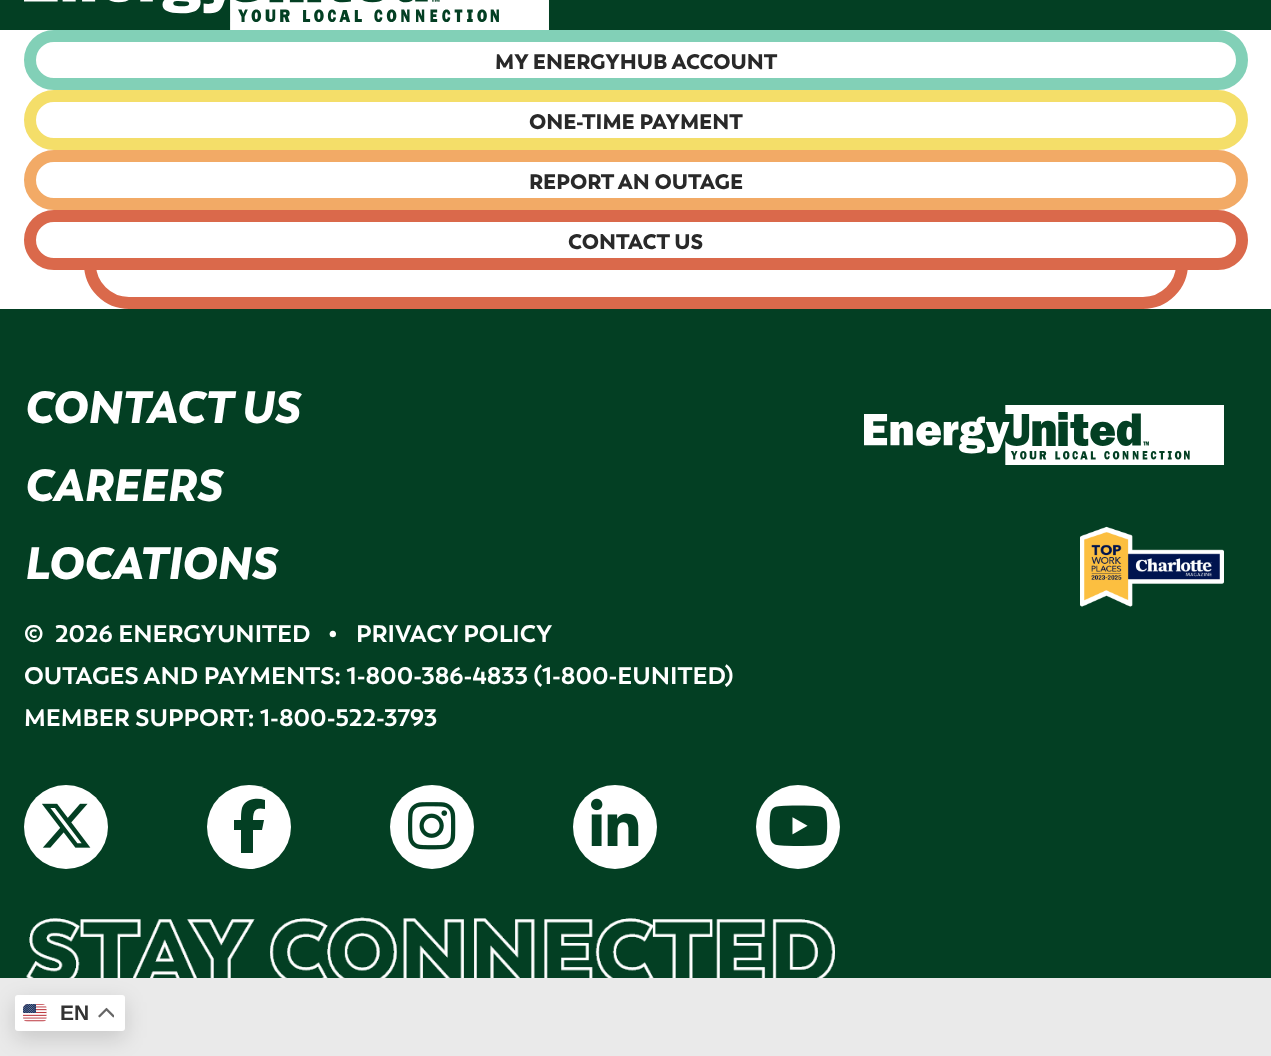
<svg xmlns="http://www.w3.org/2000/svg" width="1271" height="1056">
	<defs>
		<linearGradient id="g1" gradientUnits="userSpaceOnUse" x1="636" y1="30" x2="636" y2="270"><stop offset="0" stop-color="#FFFFFF" /><stop offset="0.4" stop-color="#FFFFFF" /><stop offset="1" stop-color="#FFFFFF" stop-opacity="0" /></linearGradient>
	</defs>
	<rect width="100%" height="100%" fill="#FFFFFF" />
	<rect x="0" y="0" width="1271" height="30" fill="#033F23" />
	<image x="24" y="0" width="525" height="30" href="assets/img1.png" />
	<rect x="90" y="125" width="1092" height="178" rx="39" fill="none" stroke="#DA694B" stroke-width="12" />
	<rect x="84" y="119" width="1104" height="148" fill="url(#g1)" />
	<rect x="30" y="36" width="1212" height="48" rx="24" fill="none" stroke="#82D0B7" stroke-width="12" />
	<text x="495" y="69" font-family="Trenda" font-size="21" font-weight="900" fill="#292929">MY ENERGYHUB ACCOUNT</text>
	<rect x="30" y="96" width="1212" height="48" rx="24" fill="#FFFFFF" stroke="#F4DE69" stroke-width="12" />
	<text x="529" y="129" font-family="Trenda" font-size="21" font-weight="900" fill="#292929">ONE-TIME PAYMENT</text>
	<rect x="30" y="156" width="1212" height="48" rx="24" fill="#FFFFFF" stroke="#F2AA66" stroke-width="12" />
	<text x="529" y="189" font-family="Trenda" font-size="21" font-weight="900" fill="#292929">REPORT AN OUTAGE</text>
	<rect x="30" y="216" width="1212" height="48" rx="24" fill="#FFFFFF" stroke="#DA694B" stroke-width="12" />
	<text x="568" y="249" font-family="Trenda" font-size="21" font-weight="900" fill="#292929">CONTACT US</text>
	<rect x="0" y="309" width="1271" height="669" fill="#033F23" />
	<g font-family="Trenda" font-size="45" font-weight="900" font-style="italic" fill="#FFFFFF">
		<text x="24" y="423">CONTACT US</text>
		<text x="24" y="501">CAREERS</text>
		<text x="24" y="579">LOCATIONS</text>
	</g>
	<g font-family="Trenda" font-size="24" font-weight="700" fill="#FFFFFF">
		<text x="24" y="642">©</text>
		<text x="55" y="642">2026 ENERGYUNITED</text>
		<text x="328" y="642">•</text>
		<text x="356" y="642">PRIVACY POLICY</text>
		<text x="24" y="684">OUTAGES AND PAYMENTS: 1-800-386-4833 (1-800-EUNITED)</text>
		<text x="24" y="726">MEMBER SUPPORT: 1-800-522-3793</text>
	</g>
	<circle cx="66" cy="827" r="42" fill="#FFFFFF" />
	<image x="42" y="803" width="49" height="45" href="assets/img2.png" />
	<circle cx="249" cy="827" r="42" fill="#FFFFFF" />
	<path d="M241 830V853V830V853H253V830H262L264 820H253C253 811 255 807 265 809V800C256 797 245 799 242 808C241 812 241 816 241 820H234V830Z" fill="#033F23" />
	<circle cx="432" cy="827" r="42" fill="#FFFFFF" />
	<image x="408" y="802" width="48" height="48" href="assets/img3.png" />
	<circle cx="615" cy="827" r="42" fill="#FFFFFF" />
	<image x="591" y="798" width="48" height="48" href="assets/img4.png" />
	<circle cx="798" cy="827" r="42" fill="#FFFFFF" />
	<image x="769" y="805" width="59" height="41" href="assets/img5.png" />
	<image x="26" y="917" width="809" height="61" href="assets/img6.png" />
	<image x="864" y="405" width="360" height="60" href="assets/img7.png" />
	<image x="1080" y="526" width="144" height="81" href="assets/img8.png" />
	<rect x="0" y="978" width="1271" height="78" fill="#EAEAEA" />
	<rect x="15" y="1002" width="110" height="36" rx="3" fill="#000000" fill-opacity="0.15" filter="blur(11px)" />
	<rect x="15" y="995" width="110" height="36" rx="3" fill="#FFFFFF" />
	<image x="23" y="1004" width="24" height="18" href="assets/img9.png" />
	<text x="60" y="1020" font-family="Liberation Sans" font-size="21" font-weight="700" fill="#333333">EN</text>
	<image x="98" y="1007" width="16" height="11" href="assets/img10.png" />
</svg>
